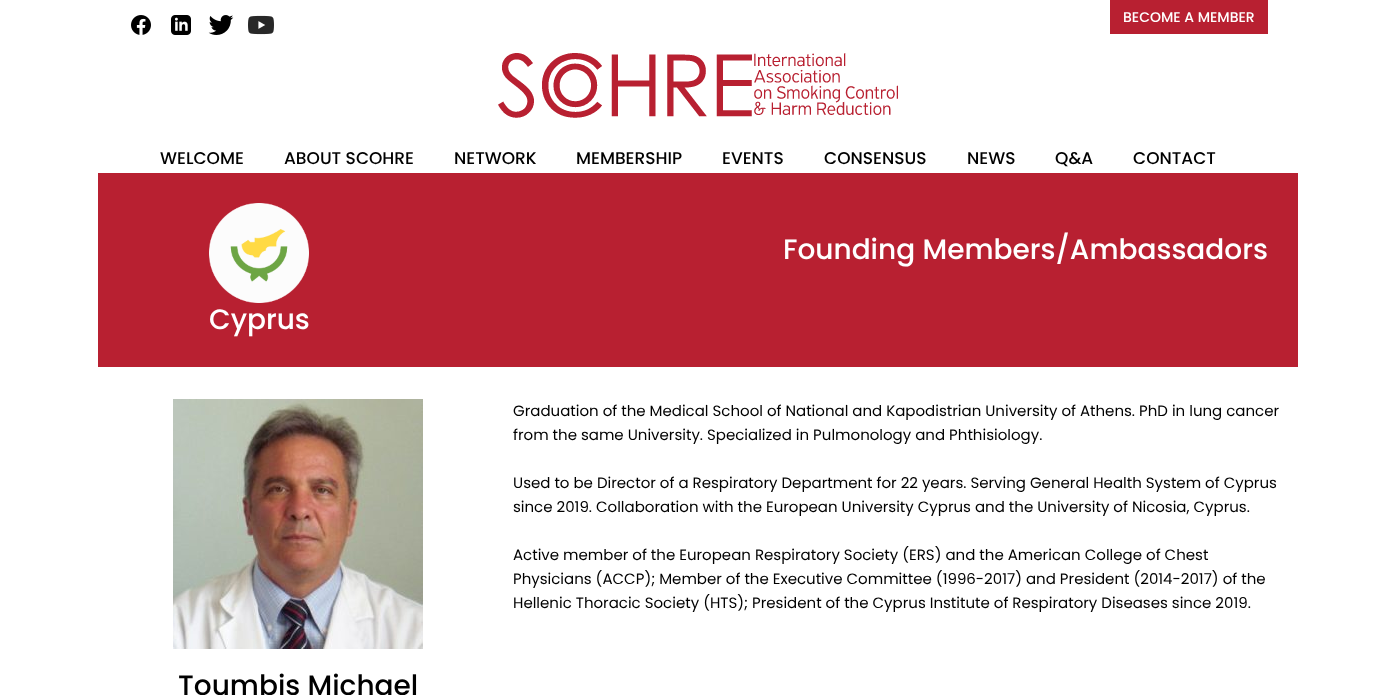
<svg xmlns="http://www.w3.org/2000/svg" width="1396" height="695">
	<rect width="100%" height="100%" fill="#FFFFFF" />
	<image x="131" y="15" width="20" height="20" href="assets/img1.png" />
	<image x="171" y="15" width="20" height="20" href="assets/img2.png" />
	<image x="208" y="15" width="26" height="20" href="assets/img3.png" />
	<image x="248" y="15" width="26" height="20" href="assets/img4.png" />
	<rect x="1110" y="0" width="158" height="34" fill="#B82031" />
	<text x="1123" y="22" font-family="Poppins" font-size="14" font-weight="500" fill="#FFFFFF">BECOME A MEMBER</text>
	<image x="498" y="53" width="400" height="65" href="assets/img5.png" />
	<g font-family="Poppins" font-size="17" font-weight="500" fill="#000000">
		<text x="160" y="164">WELCOME</text>
		<text x="284" y="164">ABOUT SCOHRE</text>
		<text x="454" y="164">NETWORK</text>
		<text x="576" y="164">MEMBERSHIP</text>
		<text x="722" y="164">EVENTS</text>
		<text x="824" y="164">CONSENSUS</text>
		<text x="967" y="164">NEWS</text>
		<text x="1055" y="164">Q&amp;A</text>
		<text x="1133" y="164">CONTACT</text>
	</g>
	<rect x="98" y="173" width="1200" height="194" fill="#B82031" />
	<text x="783" y="259" font-family="Poppins" font-size="28" font-weight="500" fill="#FFFFFF">Founding Members/Ambassadors</text>
	<image x="209" y="203" width="100" height="100" href="assets/img6.png" />
	<text x="209" y="329" font-family="Poppins" font-size="28" font-weight="500" fill="#FFFFFF">Cyprus</text>
	<g font-family="Poppins" font-size="15" fill="#000000">
		<text x="513" y="416">Graduation of the Medical School of National and Kapodistrian University of Athens. PhD in lung cancer</text>
		<text x="513" y="440">from the same University. Specialized in Pulmonology and Phthisiology.</text>
		<text x="513" y="488">Used to be Director of a Respiratory Department for 22 years. Serving General Health System of Cyprus</text>
		<text x="513" y="512">since 2019. Collaboration with the European University Cyprus and the University of Nicosia, Cyprus.</text>
		<text x="513" y="560">Active member of the European Respiratory Society (ERS) and the American College of Chest</text>
		<text x="513" y="584">Physicians (ACCP); Member of the Executive Committee (1996-2017) and President (2014-2017) of the</text>
		<text x="513" y="608">Hellenic Thoracic Society (HTS); President of the Cyprus Institute of Respiratory Diseases since 2019.</text>
	</g>
	<image x="173" y="399" width="250" height="250" href="assets/img7.png" />
	<text x="178" y="695" font-family="Poppins" font-size="28" font-weight="500" fill="#000000">Toumbis Michael</text>
</svg>
